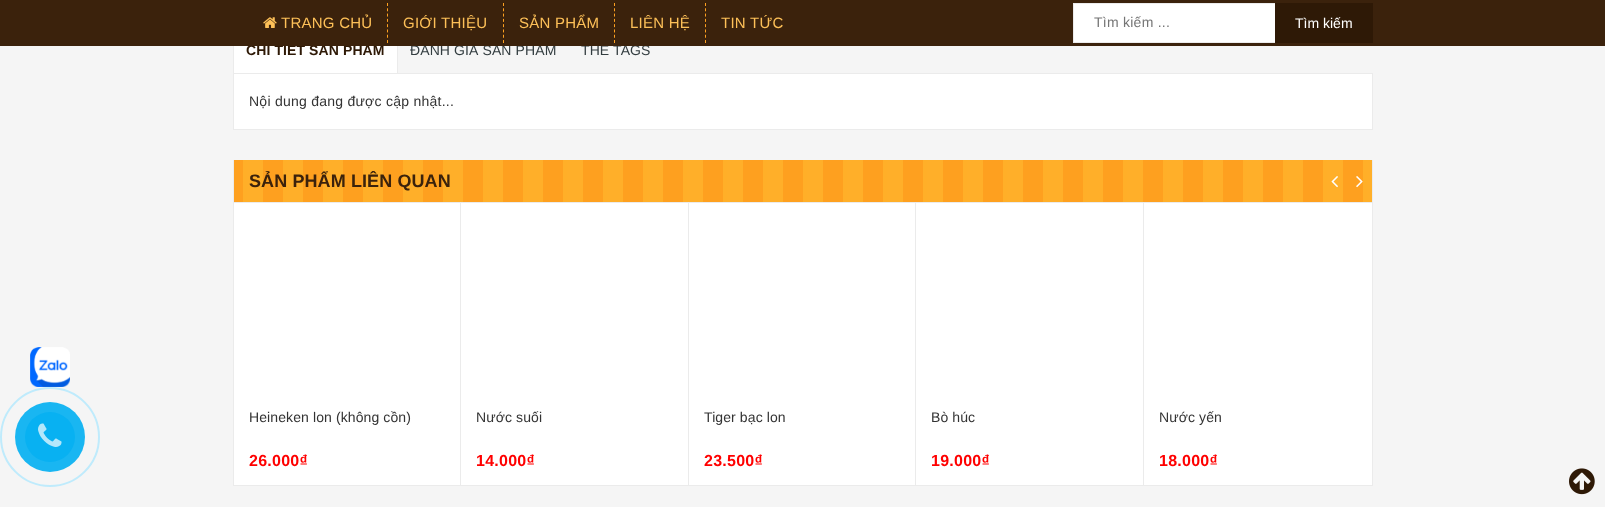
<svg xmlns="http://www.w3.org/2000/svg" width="1605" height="507">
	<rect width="100%" height="100%" fill="#F5F5F5" />
	<path d="M398 27V75L397 73V29Z" fill="#EBEBEB" />
	<path d="M233 75V27L234 29V73Z" fill="#EBEBEB" />
	<rect x="234" y="46" width="163" height="27" fill="#FFFFFF" />
	<text x="246" y="55" font-family="Liberation Sans" font-size="14" font-weight="700" letter-spacing="0.1" fill="#2E1906">CHI TIẾT SẢN PHẨM</text>
	<g font-family="Liberation Sans" font-size="14" letter-spacing="0.1" fill="#323C3F">
		<text x="410" y="55">ĐÁNH GIÁ SẢN PHẨM</text>
		<text x="581" y="55">THẺ TAGS</text>
	</g>
	<rect x="0" y="0" width="1605" height="46" fill="#3B220C" />
	<image x="263" y="17" width="14" height="11" href="assets/img1.png" />
	<text x="281" y="28" font-family="Liberation Sans" font-size="15" letter-spacing="0.25" fill="#FDC058">TRANG CHỦ</text>
	<path d="M387.5 3V43" fill="none" stroke="#FEA120" stroke-dasharray="3 2.29" />
	<text x="403" y="28" font-family="Liberation Sans" font-size="15" letter-spacing="0.25" fill="#FDC058">GIỚI THIỆU</text>
	<path d="M503.5 3V43" fill="none" stroke="#FEA120" stroke-dasharray="3 2.29" />
	<text x="519" y="28" font-family="Liberation Sans" font-size="15" letter-spacing="0.25" fill="#FDC058">SẢN PHẨM</text>
	<path d="M614.5 3V43" fill="none" stroke="#FEA120" stroke-dasharray="3 2.29" />
	<text x="630" y="28" font-family="Liberation Sans" font-size="15" letter-spacing="0.25" fill="#FDC058">LIÊN HỆ</text>
	<path d="M705.5 3V43" fill="none" stroke="#FEA120" stroke-dasharray="3 2.29" />
	<text x="721" y="28" font-family="Liberation Sans" font-size="15" letter-spacing="0.25" fill="#FDC058">TIN TỨC</text>
	<rect x="1074" y="4" width="201" height="38" fill="#FFFFFF" />
	<rect x="1073.5" y="3.5" width="299" height="39" fill="none" stroke="#EBEBEB" />
	<text x="1094" y="27" font-family="Liberation Sans" font-size="14" letter-spacing="0.25" fill="#757575">Tìm kiếm ...</text>
	<rect x="1275" y="3" width="98" height="40" fill="#2E1906" />
	<text x="1295" y="28" font-family="Liberation Sans" font-size="14" fill="#FFFFFF">Tìm kiếm</text>
	<image x="30" y="347" width="40" height="40" href="assets/img2.png" />
	<rect x="233.5" y="73.5" width="1139" height="56" fill="#FFFFFF" stroke="#EBEBEB" />
	<text x="249" y="106" font-family="Liberation Sans" font-size="14" letter-spacing="0.25" fill="#333333">Nội dung đang được cập nhật...</text>
	<image x="234" y="160" width="1138" height="42" href="assets/img3.png" />
	<rect x="1372" y="160" width="1" height="42" fill="#EBEBEB" />
	<rect x="233" y="160" width="1" height="42" fill="#EBEBEB" />
	<text x="249" y="187" font-family="Liberation Sans" font-size="18" font-weight="700" letter-spacing="0.1" fill="#3B220C">SẢN PHẨM LIÊN QUAN</text>
	<rect x="233.5" y="202.5" width="1139" height="283" fill="#FFFFFF" stroke="#EBEBEB" />
	<image x="1331" y="176" width="7" height="12" href="assets/img4.png" />
	<image x="1356" y="176" width="7" height="12" href="assets/img5.png" />
	<rect x="460" y="203" width="1" height="282" fill="#EBEBEB" />
	<text x="249" y="422" font-family="Liberation Sans" font-size="14" letter-spacing="0.1" fill="#333333">Heineken lon (không cồn)</text>
	<text x="249" y="466" font-family="Liberation Sans" font-size="16" font-weight="700" letter-spacing="0.25" fill="#FF0000">26.000₫</text>
	<rect x="688" y="203" width="1" height="282" fill="#EBEBEB" />
	<text x="476" y="422" font-family="Liberation Sans" font-size="14" letter-spacing="0.1" fill="#333333">Nước suối</text>
	<text x="476" y="466" font-family="Liberation Sans" font-size="16" font-weight="700" letter-spacing="0.25" fill="#FF0000">14.000₫</text>
	<rect x="915" y="203" width="1" height="282" fill="#EBEBEB" />
	<text x="704" y="422" font-family="Liberation Sans" font-size="14" letter-spacing="0.1" fill="#333333">Tiger bạc lon</text>
	<text x="704" y="466" font-family="Liberation Sans" font-size="16" font-weight="700" letter-spacing="0.25" fill="#FF0000">23.500₫</text>
	<rect x="1143" y="203" width="1" height="282" fill="#EBEBEB" />
	<text x="931" y="422" font-family="Liberation Sans" font-size="14" letter-spacing="0.1" fill="#333333">Bò húc</text>
	<text x="931" y="466" font-family="Liberation Sans" font-size="16" font-weight="700" letter-spacing="0.25" fill="#FF0000">19.000₫</text>
	<text x="1159" y="422" font-family="Liberation Sans" font-size="14" letter-spacing="0.1" fill="#333333">Nước yến</text>
	<text x="1159" y="466" font-family="Liberation Sans" font-size="16" font-weight="700" letter-spacing="0.25" fill="#FF0000">18.000₫</text>
	<circle cx="50" cy="437" r="49" fill="none" stroke="#BFEBFC" stroke-width="2" />
	<circle cx="50" cy="437" r="35" fill="#19B6F2" />
	<circle cx="50" cy="437" r="25" fill="#08B1F2" />
	<image x="38" y="423" width="24" height="24" href="assets/img6.png" />
	<image x="1569" y="468" width="26" height="27" href="assets/img7.png" />
</svg>
